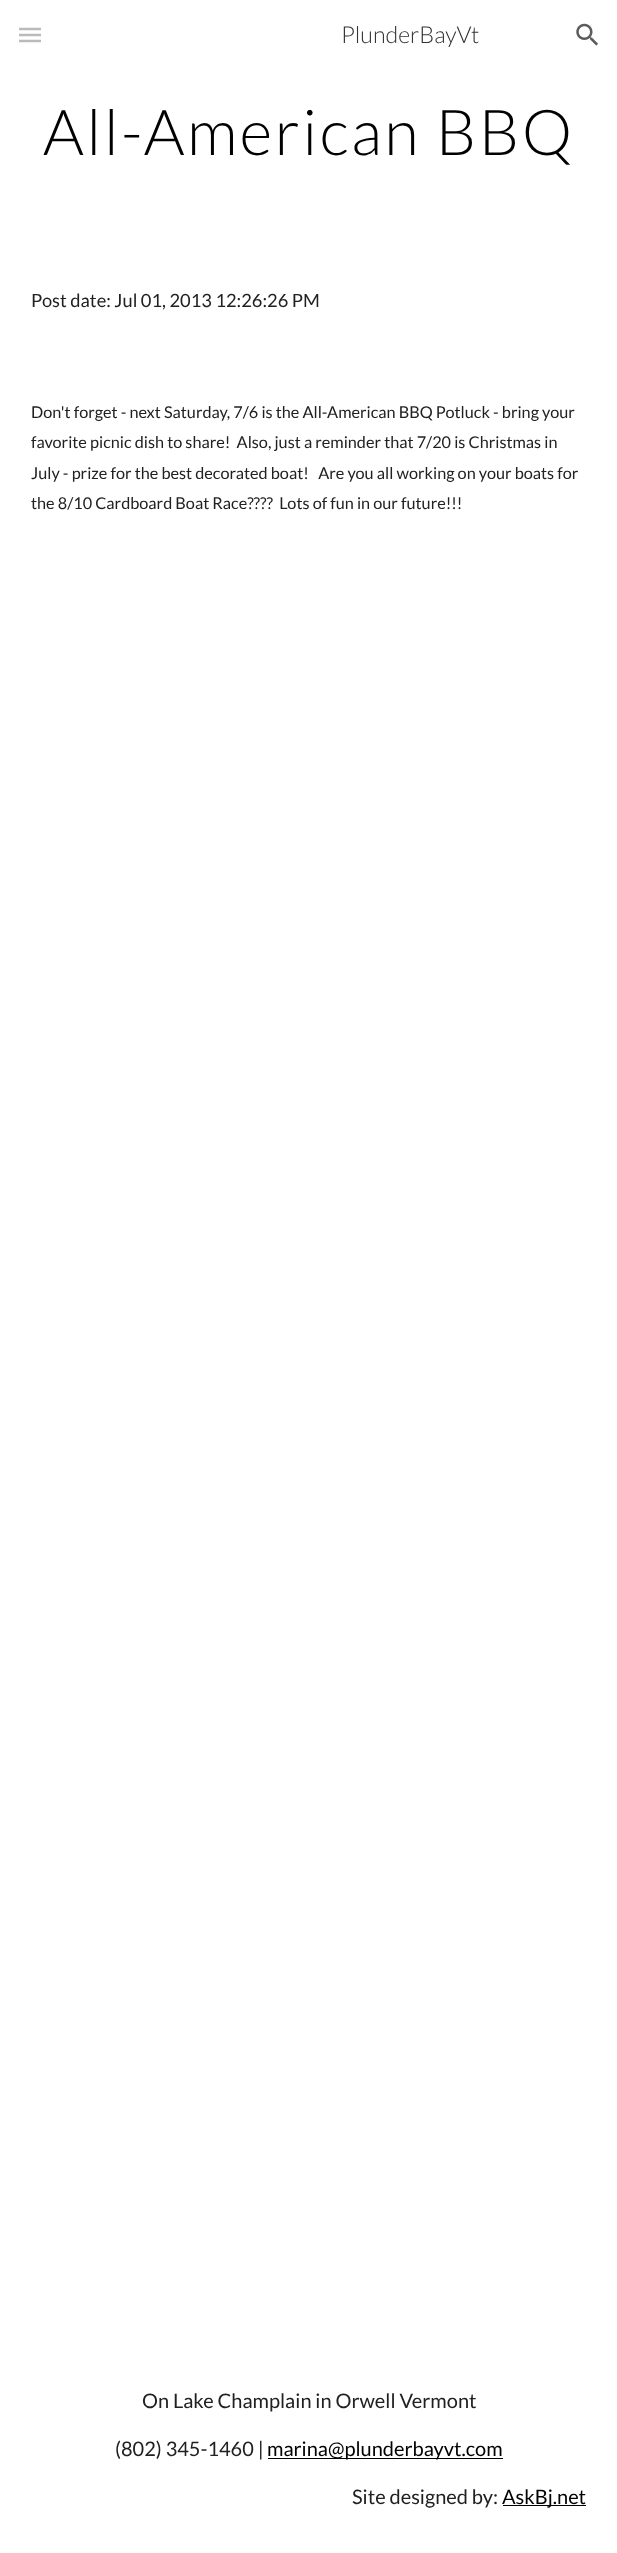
<svg xmlns="http://www.w3.org/2000/svg" width="617" height="2553">
	<rect width="100%" height="100%" fill="#FFFFFF" />
	<path d="M19 29H41M19 35H41M19 41H41" fill="none" stroke="#BBBBBB" stroke-width="2.5" />
	<text x="341" y="43" font-family="Lato" font-size="23.25" font-weight="300" fill="#333333">PlunderBayVt</text>
	<image x="576" y="23" width="22" height="23" href="assets/img1.png" />
	<text x="43" y="155" font-family="Lato" font-size="63.25" font-weight="300" letter-spacing="2.5" fill="#000000">All-American BBQ</text>
	<text x="31" y="307" font-family="Lato" font-size="18.3" fill="#212121">Post date: Jul 01, 2013 12:26:26 PM</text>
	<g font-family="Lato" font-size="16.25" fill="#212121">
		<text x="31" y="418">Don't forget - next Saturday, 7/6 is the All-American BBQ Potluck - bring your</text>
		<text x="31" y="448" xml:space="preserve">favorite picnic dish to share!  Also, just a reminder that 7/20 is Christmas in</text>
		<text x="31" y="479" xml:space="preserve">July - prize for the best decorated boat!   Are you all working on your boats for</text>
		<text x="31" y="509" xml:space="preserve">the 8/10 Cardboard Boat Race????  Lots of fun in our future!!!</text>
	</g>
	<g font-family="Lato" font-size="20" fill="#212121">
		<text x="142" y="2408">On Lake Champlain in Orwell Vermont</text>
		<text x="115" y="2456">(802) 345-1460 |</text>
	</g>
	<rect x="268" y="2458" width="235" height="1" fill="#000000" />
	<text x="267" y="2456" font-family="Lato" font-size="20" fill="#000000">marina@plunderbayvt.com</text>
	<text x="352" y="2504" font-family="Lato" font-size="20" fill="#212121">Site designed by:</text>
	<rect x="503" y="2505" width="83" height="1" fill="#000000" />
	<text x="502" y="2504" font-family="Lato" font-size="20" fill="#000000">AskBj.net</text>
</svg>
